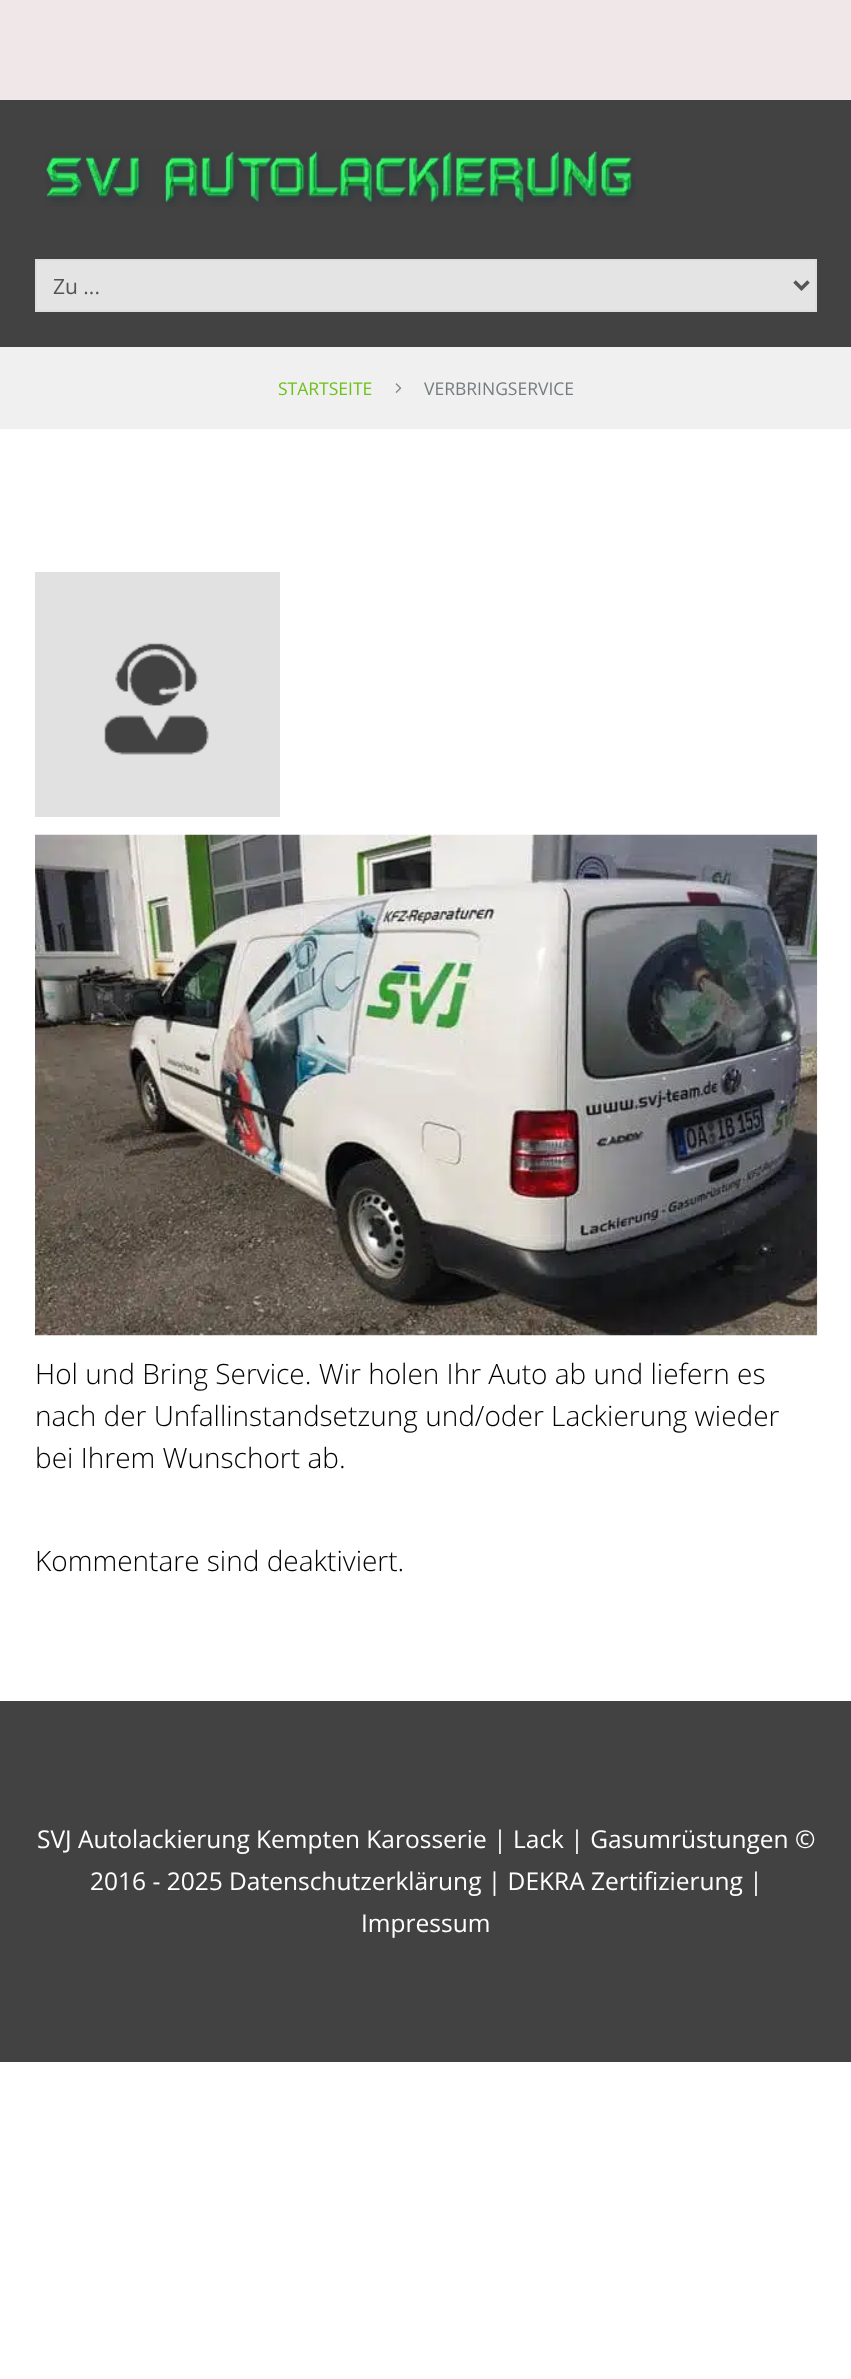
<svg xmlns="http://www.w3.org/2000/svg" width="851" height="2379">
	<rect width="100%" height="100%" fill="#FFFFFF" />
	<rect x="0" y="0" width="851" height="100" fill="#F0E8E8" />
	<rect x="0" y="100" width="851" height="247" fill="#424242" />
	<image x="45" y="150" width="591" height="57" href="assets/img1.png" />
	<rect x="36" y="260" width="780" height="51" fill="#E4E4E4" stroke="#DDDDDD" stroke-width="2" />
	<path d="M794.5 281.5L801.5 288.5L808.5 281.5" fill="none" stroke="#555555" stroke-width="3.5" />
	<text x="53" y="294" font-family="Open Sans" font-size="21" fill="#555555">Zu ...</text>
	<rect x="0" y="347" width="35" height="82" fill="#F0F0F0" />
	<rect x="35" y="347" width="816" height="82" fill="#F0F0F0" />
	<text x="278" y="395" font-family="Open Sans" font-size="17.5" fill="#6BC219">STARTSEITE</text>
	<image x="395" y="383" width="7" height="10" href="assets/img2.png" />
	<text x="424" y="395" font-family="Open Sans" font-size="17.5" fill="#757C7F">VERBRINGSERVICE</text>
	<rect x="35" y="572" width="245" height="245" fill="#E1E1E2" />
	<image x="104" y="643" width="105" height="112" href="assets/img3.png" />
	<image x="35" y="834" width="783" height="502" href="assets/img4.png" />
	<g font-family="Open Sans" font-size="28" font-weight="300" fill="#000000">
		<text x="35" y="1384">Hol und Bring Service. Wir holen Ihr Auto ab und liefern es</text>
		<text x="35" y="1426">nach der Unfallinstandsetzung und/oder Lackierung wieder</text>
		<text x="35" y="1468">bei Ihrem Wunschort ab.</text>
		<text x="35" y="1571">Kommentare sind deaktiviert.</text>
	</g>
	<rect x="0" y="1701" width="851" height="361" fill="#424242" />
	<g font-family="Open Sans" font-size="24.5" fill="#FFFFFF">
		<text x="37" y="1848">SVJ Autolackierung Kempten Karosserie | Lack | Gasumrüstungen ©</text>
		<text x="90" y="1890">2016 - 2025 Datenschutzerklärung | DEKRA Zertifizierung |</text>
		<text x="361" y="1932">Impressum</text>
	</g>
</svg>
